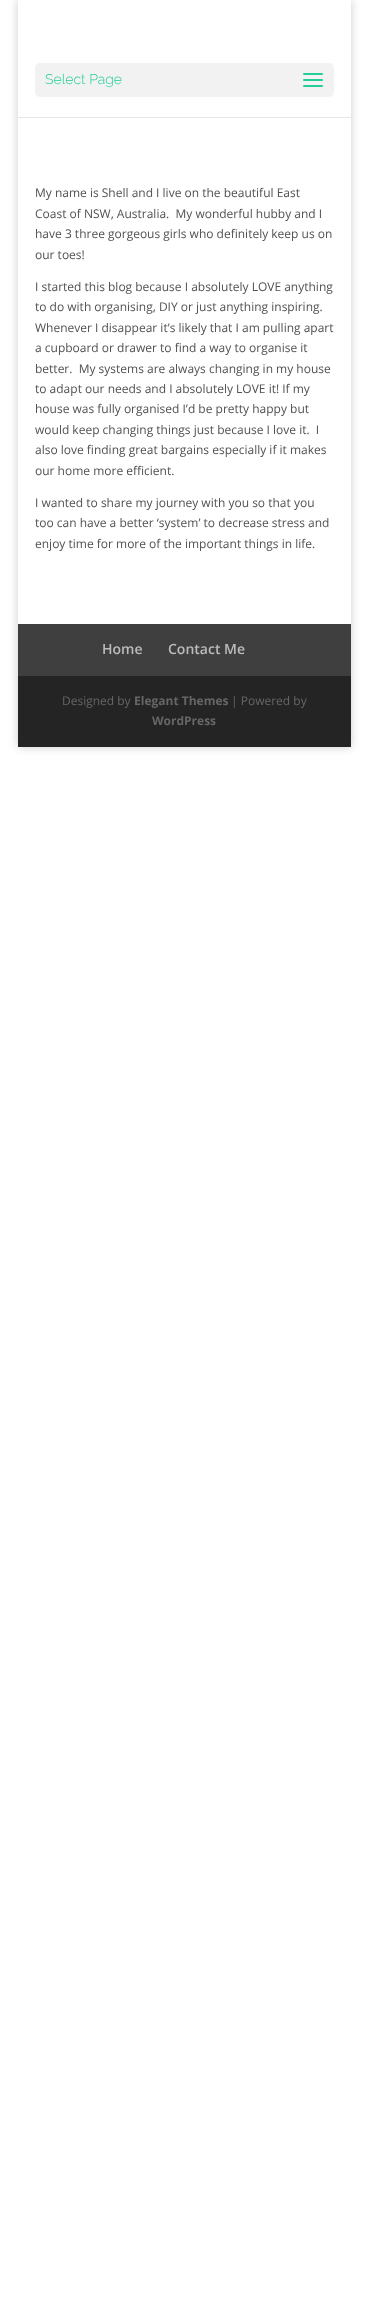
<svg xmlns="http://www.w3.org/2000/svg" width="369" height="2312">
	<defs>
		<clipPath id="clip1"><path d="M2 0H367V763H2ZM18 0H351V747H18Z" clip-rule="evenodd" /></clipPath>
	</defs>
	<rect width="100%" height="100%" fill="#FFFFFF" />
	<g clip-path="url(#clip1)">
		<rect x="18" y="0" width="333" height="747" fill="#000000" fill-opacity="0.2" filter="blur(5px)" />
	</g>
	<rect x="18" y="117" width="333" height="1" fill="#E6E6E6" />
	<rect x="35" y="63" width="299" height="34" rx="5" fill="#F2F2F2" />
	<text x="45" y="84" font-family="Raleway" font-size="14" font-weight="300" fill="#21CE9A">Select Page</text>
	<image x="303" y="73" width="20" height="14" href="assets/img1.png" />
	<g font-family="Open Sans" font-size="12" fill="#515151">
		<text x="35" y="197">My name is Shell and I live on the beautiful East</text>
		<text x="35" y="218" xml:space="preserve">Coast of NSW, Australia.  My wonderful hubby and I</text>
		<text x="35" y="238">have 3 three gorgeous girls who definitely keep us on</text>
		<text x="35" y="259">our toes!</text>
		<text x="35" y="291">I started this blog because I absolutely LOVE anything</text>
		<text x="35" y="311">to do with organising, DIY or just anything inspiring.</text>
		<text x="35" y="332">Whenever I disappear it’s likely that I am pulling apart</text>
		<text x="35" y="352">a cupboard or drawer to find a way to organise it</text>
		<text x="35" y="373" xml:space="preserve">better.  My systems are always changing in my house</text>
		<text x="35" y="393">to adapt our needs and I absolutely LOVE it! If my</text>
		<text x="35" y="413">house was fully organised I’d be pretty happy but</text>
		<text x="35" y="434" xml:space="preserve">would keep changing things just because I love it.  I</text>
		<text x="35" y="454">also love finding great bargains especially if it makes</text>
		<text x="35" y="475">our home more efficient.</text>
		<text x="35" y="507">I wanted to share my journey with you so that you</text>
		<text x="35" y="527">too can have a better ‘system’ to decrease stress and</text>
		<text x="35" y="548">enjoy time for more of the important things in life.</text>
	</g>
	<rect x="18" y="624" width="333" height="52" fill="#3F3F3F" />
	<g font-family="Open Sans" font-size="14" font-weight="600" fill="#BBBBBB">
		<text x="102" y="654">Home</text>
		<text x="168" y="654">Contact Me</text>
	</g>
	<rect x="18" y="676" width="333" height="71" fill="#242424" />
	<text x="62" y="705" font-family="Open Sans" font-size="12" fill="#666666">Designed by</text>
	<text x="134" y="705" font-family="Open Sans" font-size="12" font-weight="700" fill="#666666">Elegant Themes</text>
	<text x="231" y="705" font-family="Open Sans" font-size="12" fill="#666666">| Powered by</text>
	<text x="152" y="725" font-family="Open Sans" font-size="12" font-weight="700" fill="#666666">WordPress</text>
</svg>
